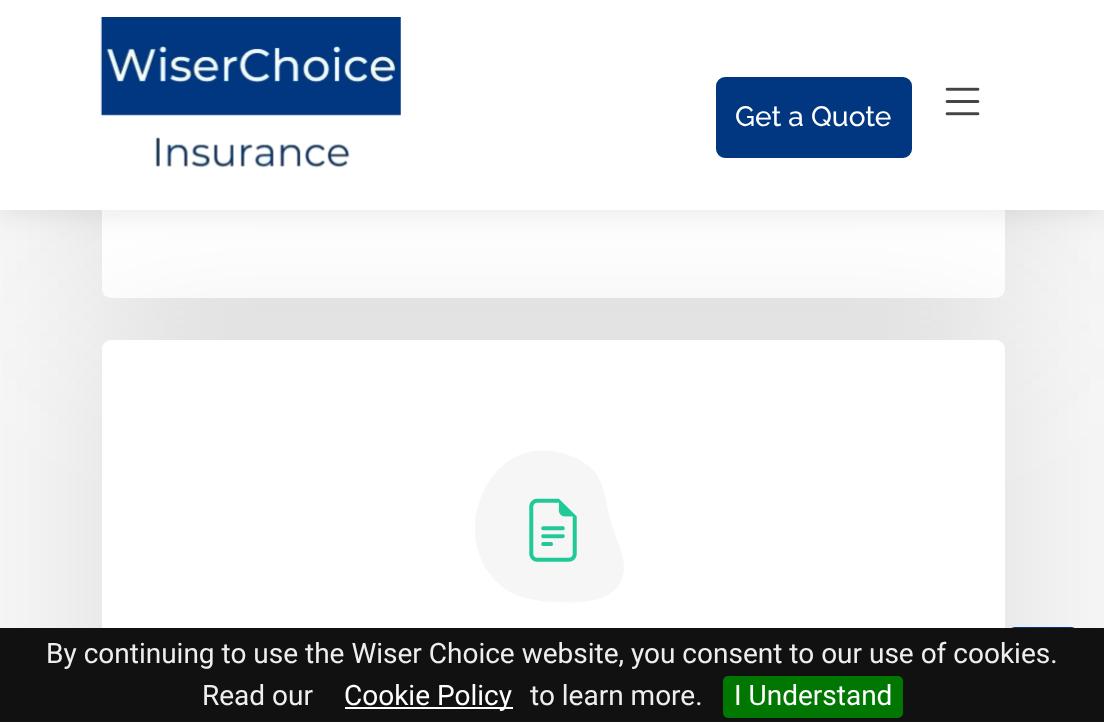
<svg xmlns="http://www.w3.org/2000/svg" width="1104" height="722">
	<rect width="100%" height="100%" fill="#F7F7F7" />
	<rect x="102" y="-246" width="903" height="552" rx="9" fill="#000000" fill-opacity="0.1" filter="blur(79px)" />
	<rect x="102" y="-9" width="903" height="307" rx="9" fill="#FFFFFF" />
	<rect x="102" y="348" width="903" height="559" rx="9" fill="#000000" fill-opacity="0.1" filter="blur(79px)" />
	<rect x="102" y="340" width="903" height="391" rx="9" fill="#FFFFFF" />
	<path d="M553 602C577 603 605 604 619 585C632 565 616 541 610 519C605 498 604 475 586 464C566 450 539 446 517 456C494 467 481 490 476 514C472 538 478 562 494 579C508 596 531 601 553 602" fill="#F6F6F6" />
	<image x="529" y="498" width="48" height="64" href="assets/img1.png" />
	<rect x="0" y="0" width="1104" height="210" fill="#000000" fill-opacity="0.1" filter="blur(16px)" />
	<rect x="0" y="0" width="1104" height="210" fill="#FFFFFF" />
	<image x="100" y="17" width="301" height="151" href="assets/img2.png" />
	<rect x="717" y="78" width="194" height="79" rx="8" fill="#013781" stroke="#013781" stroke-width="2" />
	<text x="735" y="126" font-family="Raleway" font-size="28" font-weight="500" fill="#FFFFFF">Get a Quote</text>
	<image x="945" y="87" width="35" height="29" href="assets/img3.png" />
	<rect x="1008" y="627" width="70" height="70" rx="7" fill="#013781" />
	<rect x="0" y="628" width="1104" height="94" fill="#111111" />
	<g font-family="Roboto" font-size="28" fill="#EEEEEE">
		<text x="46" y="663">By continuing to use the Wiser Choice website, you consent to our use of cookies.</text>
		<text x="202" y="705">Read our</text>
	</g>
	<rect x="345" y="707" width="168" height="2" fill="#FFFFFF" />
	<text x="344" y="705" font-family="Roboto" font-size="28" fill="#FFFFFF">Cookie Policy</text>
	<text x="530" y="705" font-family="Roboto" font-size="28" fill="#EEEEEE">to learn more.</text>
	<rect x="723" y="676" width="180" height="42" rx="5" fill="#007700" />
	<text x="734" y="705" font-family="Roboto" font-size="28" fill="#FFFFFF">I Understand</text>
</svg>
